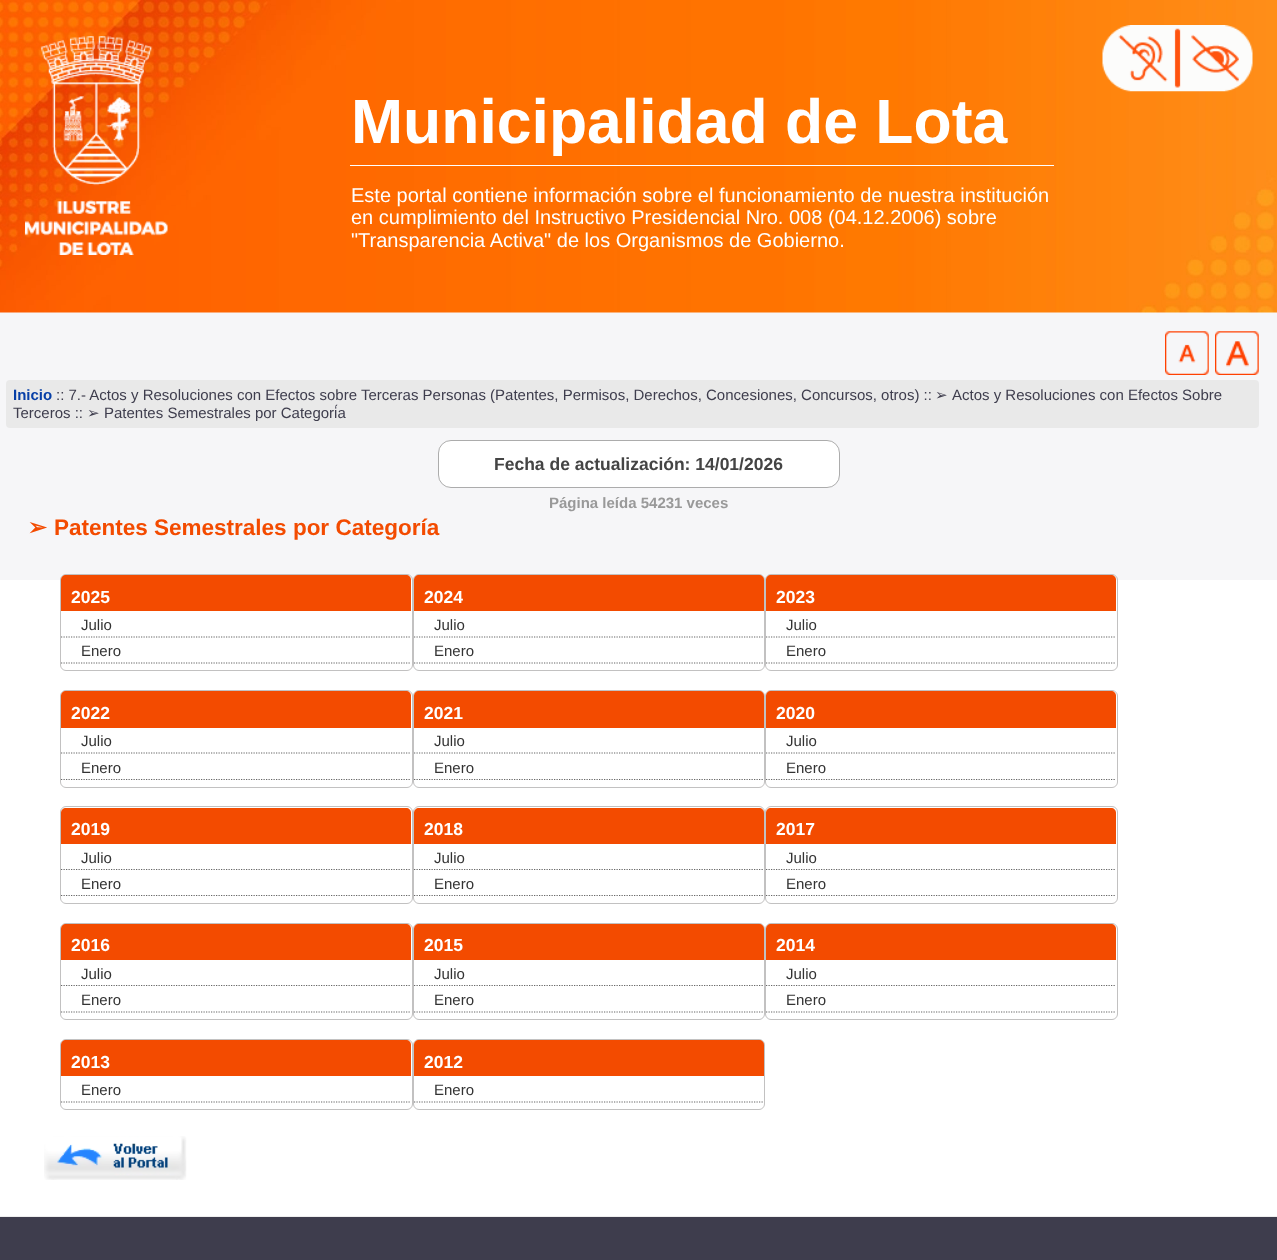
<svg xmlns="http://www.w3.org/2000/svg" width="1277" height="1260">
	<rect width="100%" height="100%" fill="#FFFFFF" />
	<rect x="0" y="312" width="1277" height="268" fill="#F6F6F8" />
	<image x="0" y="0" width="1277" height="313" href="assets/img1.png" />
	<image x="25" y="36" width="143" height="219" href="assets/img2.png" />
	<rect x="350" y="165" width="704" height="1" fill="#FFFFFF" />
	<text x="351" y="143" font-family="Liberation Sans" font-size="62.5" font-weight="700" fill="#FFFFFF">Municipalidad de Lota</text>
	<g font-family="Liberation Sans" font-size="20" fill="#FFFFFF">
		<text x="351" y="202">Este portal contiene información sobre el funcionamiento de nuestra institución</text>
		<text x="351" y="224">en cumplimiento del Instructivo Presidencial Nro. 008 (04.12.2006) sobre</text>
		<text x="351" y="247">"Transparencia Activa" de los Organismos de Gobierno.</text>
	</g>
	<image x="1102" y="25" width="151" height="67" href="assets/img3.png" />
	<image x="1165" y="331" width="44" height="44" href="assets/img4.png" />
	<image x="1215" y="331" width="44" height="44" href="assets/img5.png" />
	<rect x="6" y="380" width="1253" height="48" rx="4" fill="#E9E9E9" />
	<text x="13" y="400" font-family="Liberation Sans" font-size="15" font-weight="700" fill="#073FA7">Inicio</text>
	<text x="56" y="400" font-family="Liberation Sans" font-size="15" fill="#3E3D4D">:: 7.- Actos y Resoluciones con Efectos sobre Terceras Personas (Patentes, Permisos, Derechos, Concesiones, Concursos, otros) ::</text>
	<text x="935" y="400" font-family="DejaVu Sans" font-size="15" fill="#3E3D4D">➢</text>
	<g font-family="Liberation Sans" font-size="15" fill="#3E3D4D">
		<text x="952" y="400">Actos y Resoluciones con Efectos Sobre</text>
		<text x="13" y="418">Terceros ::</text>
	</g>
	<text x="87" y="418" font-family="DejaVu Sans" font-size="15" fill="#3E3D4D">➢</text>
	<text x="104" y="418" font-family="Liberation Sans" font-size="15" fill="#3E3D4D">Patentes Semestrales por Categoría</text>
	<rect x="438.5" y="440.5" width="401" height="47" rx="12.5" fill="#FFFFFF" stroke="#ACACAC" />
	<text x="494" y="470" font-family="Liberation Sans" font-size="17.5" font-weight="700" fill="#444444">Fecha de actualización: 14/01/2026</text>
	<text x="549" y="508" font-family="Liberation Sans" font-size="15" font-weight="700" fill="#999999">Página leída 54231 veces</text>
	<text x="28" y="535" font-family="DejaVu Sans" font-size="22.5" font-weight="700" fill="#F34B00">➢</text>
	<text x="54" y="535" font-family="Liberation Sans" font-size="22.5" font-weight="700" fill="#F34B00">Patentes Semestrales por Categoría</text>
	<rect x="60.5" y="574.5" width="352" height="96" rx="5.5" fill="none" stroke="#C2C1C1" />
	<path d="M66 575H406C409 575 411 577 411 580V611H61V580C61 577 63 575 66 575Z" fill="#F34B00" />
	<text x="71" y="603" font-family="Liberation Sans" font-size="17.5" font-weight="700" fill="#FFFFFF">2025</text>
	<path d="M61 637H411" fill="none" stroke="#666666" stroke-width="1.2" stroke-dasharray="1.25 1.25" />
	<text x="81" y="630" font-family="Liberation Sans" font-size="15" fill="#333333">Julio</text>
	<path d="M61 663H411" fill="none" stroke="#666666" stroke-width="1.2" stroke-dasharray="1.25 1.25" />
	<text x="81" y="656" font-family="Liberation Sans" font-size="15" fill="#333333">Enero</text>
	<rect x="413.5" y="574.5" width="351" height="96" rx="5.5" fill="none" stroke="#C2C1C1" />
	<path d="M419 575H759C762 575 764 577 764 580V611H414V580C414 577 416 575 419 575Z" fill="#F34B00" />
	<text x="424" y="603" font-family="Liberation Sans" font-size="17.5" font-weight="700" fill="#FFFFFF">2024</text>
	<path d="M414 637H764" fill="none" stroke="#666666" stroke-width="1.2" stroke-dasharray="1.25 1.25" />
	<text x="434" y="630" font-family="Liberation Sans" font-size="15" fill="#333333">Julio</text>
	<path d="M414 663H764" fill="none" stroke="#666666" stroke-width="1.2" stroke-dasharray="1.25 1.25" />
	<text x="434" y="656" font-family="Liberation Sans" font-size="15" fill="#333333">Enero</text>
	<rect x="765.5" y="574.5" width="352" height="96" rx="5.5" fill="none" stroke="#C2C1C1" />
	<path d="M771 575H1111C1114 575 1116 577 1116 580V611H766V580C766 577 768 575 771 575Z" fill="#F34B00" />
	<text x="776" y="603" font-family="Liberation Sans" font-size="17.5" font-weight="700" fill="#FFFFFF">2023</text>
	<path d="M766 637H1116" fill="none" stroke="#666666" stroke-width="1.2" stroke-dasharray="1.25 1.25" />
	<text x="786" y="630" font-family="Liberation Sans" font-size="15" fill="#333333">Julio</text>
	<path d="M766 663H1116" fill="none" stroke="#666666" stroke-width="1.2" stroke-dasharray="1.25 1.25" />
	<text x="786" y="656" font-family="Liberation Sans" font-size="15" fill="#333333">Enero</text>
	<rect x="60.5" y="690.5" width="352" height="97" rx="5.5" fill="none" stroke="#C2C1C1" />
	<path d="M66 691H406C409 691 411 693 411 696V728H61V696C61 693 63 691 66 691Z" fill="#F34B00" />
	<text x="71" y="719" font-family="Liberation Sans" font-size="17.5" font-weight="700" fill="#FFFFFF">2022</text>
	<path d="M61 753H411" fill="none" stroke="#666666" stroke-width="1.2" stroke-dasharray="1.25 1.25" />
	<text x="81" y="746" font-family="Liberation Sans" font-size="15" fill="#333333">Julio</text>
	<path d="M61 779.5H411" fill="none" stroke="#666666" stroke-width="1.2" stroke-dasharray="1.25 1.25" />
	<text x="81" y="773" font-family="Liberation Sans" font-size="15" fill="#333333">Enero</text>
	<rect x="413.5" y="690.5" width="351" height="97" rx="5.5" fill="none" stroke="#C2C1C1" />
	<path d="M419 691H759C762 691 764 693 764 696V728H414V696C414 693 416 691 419 691Z" fill="#F34B00" />
	<text x="424" y="719" font-family="Liberation Sans" font-size="17.5" font-weight="700" fill="#FFFFFF">2021</text>
	<path d="M414 753H764" fill="none" stroke="#666666" stroke-width="1.2" stroke-dasharray="1.25 1.25" />
	<text x="434" y="746" font-family="Liberation Sans" font-size="15" fill="#333333">Julio</text>
	<path d="M414 779.5H764" fill="none" stroke="#666666" stroke-width="1.2" stroke-dasharray="1.25 1.25" />
	<text x="434" y="773" font-family="Liberation Sans" font-size="15" fill="#333333">Enero</text>
	<rect x="765.5" y="690.5" width="352" height="97" rx="5.5" fill="none" stroke="#C2C1C1" />
	<path d="M771 691H1111C1114 691 1116 693 1116 696V728H766V696C766 693 768 691 771 691Z" fill="#F34B00" />
	<text x="776" y="719" font-family="Liberation Sans" font-size="17.5" font-weight="700" fill="#FFFFFF">2020</text>
	<path d="M766 753H1116" fill="none" stroke="#666666" stroke-width="1.2" stroke-dasharray="1.25 1.25" />
	<text x="786" y="746" font-family="Liberation Sans" font-size="15" fill="#333333">Julio</text>
	<path d="M766 779.5H1116" fill="none" stroke="#666666" stroke-width="1.2" stroke-dasharray="1.25 1.25" />
	<text x="786" y="773" font-family="Liberation Sans" font-size="15" fill="#333333">Enero</text>
	<rect x="60.5" y="806.5" width="352" height="97" rx="5.5" fill="none" stroke="#C2C1C1" />
	<path d="M66 808H406C409 808 411 810 411 813V844H61V813C61 810 63 808 66 808Z" fill="#F34B00" />
	<text x="71" y="835" font-family="Liberation Sans" font-size="17.5" font-weight="700" fill="#FFFFFF">2019</text>
	<path d="M61 869.5H411" fill="none" stroke="#666666" stroke-width="1.2" stroke-dasharray="1.25 1.25" />
	<text x="81" y="863" font-family="Liberation Sans" font-size="15" fill="#333333">Julio</text>
	<rect x="61" y="870" width="349" height="1" fill="#FFFFFF" />
	<path d="M61 895.5H411" fill="none" stroke="#666666" stroke-width="1.2" stroke-dasharray="1.25 1.25" />
	<text x="81" y="889" font-family="Liberation Sans" font-size="15" fill="#333333">Enero</text>
	<rect x="413.5" y="806.5" width="351" height="97" rx="5.5" fill="none" stroke="#C2C1C1" />
	<path d="M419 808H759C762 808 764 810 764 813V844H414V813C414 810 416 808 419 808Z" fill="#F34B00" />
	<text x="424" y="835" font-family="Liberation Sans" font-size="17.5" font-weight="700" fill="#FFFFFF">2018</text>
	<path d="M414 869.5H764" fill="none" stroke="#666666" stroke-width="1.2" stroke-dasharray="1.25 1.25" />
	<text x="434" y="863" font-family="Liberation Sans" font-size="15" fill="#333333">Julio</text>
	<rect x="414" y="870" width="349" height="1" fill="#FFFFFF" />
	<path d="M414 895.5H764" fill="none" stroke="#666666" stroke-width="1.2" stroke-dasharray="1.25 1.25" />
	<text x="434" y="889" font-family="Liberation Sans" font-size="15" fill="#333333">Enero</text>
	<rect x="765.5" y="806.5" width="352" height="97" rx="5.5" fill="none" stroke="#C2C1C1" />
	<path d="M771 808H1111C1114 808 1116 810 1116 813V844H766V813C766 810 768 808 771 808Z" fill="#F34B00" />
	<text x="776" y="835" font-family="Liberation Sans" font-size="17.5" font-weight="700" fill="#FFFFFF">2017</text>
	<path d="M766 869.5H1116" fill="none" stroke="#666666" stroke-width="1.2" stroke-dasharray="1.25 1.25" />
	<text x="786" y="863" font-family="Liberation Sans" font-size="15" fill="#333333">Julio</text>
	<rect x="766" y="870" width="349" height="1" fill="#FFFFFF" />
	<path d="M766 895.5H1116" fill="none" stroke="#666666" stroke-width="1.2" stroke-dasharray="1.25 1.25" />
	<text x="786" y="889" font-family="Liberation Sans" font-size="15" fill="#333333">Enero</text>
	<rect x="60.5" y="923.5" width="352" height="96" rx="5.5" fill="none" stroke="#C2C1C1" />
	<path d="M66 924H406C409 924 411 926 411 929V960H61V929C61 926 63 924 66 924Z" fill="#F34B00" />
	<text x="71" y="951" font-family="Liberation Sans" font-size="17.5" font-weight="700" fill="#FFFFFF">2016</text>
	<path d="M61 985.5H411" fill="none" stroke="#666666" stroke-width="1.2" stroke-dasharray="1.25 1.25" />
	<text x="81" y="979" font-family="Liberation Sans" font-size="15" fill="#333333">Julio</text>
	<rect x="61" y="986" width="349" height="1" fill="#FFFFFF" />
	<path d="M61 1012H411" fill="none" stroke="#666666" stroke-width="1.2" stroke-dasharray="1.25 1.25" />
	<text x="81" y="1005" font-family="Liberation Sans" font-size="15" fill="#333333">Enero</text>
	<rect x="413.5" y="923.5" width="351" height="96" rx="5.5" fill="none" stroke="#C2C1C1" />
	<path d="M419 924H759C762 924 764 926 764 929V960H414V929C414 926 416 924 419 924Z" fill="#F34B00" />
	<text x="424" y="951" font-family="Liberation Sans" font-size="17.5" font-weight="700" fill="#FFFFFF">2015</text>
	<path d="M414 985.5H764" fill="none" stroke="#666666" stroke-width="1.2" stroke-dasharray="1.25 1.25" />
	<text x="434" y="979" font-family="Liberation Sans" font-size="15" fill="#333333">Julio</text>
	<rect x="414" y="986" width="349" height="1" fill="#FFFFFF" />
	<path d="M414 1012H764" fill="none" stroke="#666666" stroke-width="1.2" stroke-dasharray="1.25 1.25" />
	<text x="434" y="1005" font-family="Liberation Sans" font-size="15" fill="#333333">Enero</text>
	<rect x="765.5" y="923.5" width="352" height="96" rx="5.5" fill="none" stroke="#C2C1C1" />
	<path d="M771 924H1111C1114 924 1116 926 1116 929V960H766V929C766 926 768 924 771 924Z" fill="#F34B00" />
	<text x="776" y="951" font-family="Liberation Sans" font-size="17.5" font-weight="700" fill="#FFFFFF">2014</text>
	<path d="M766 985.5H1116" fill="none" stroke="#666666" stroke-width="1.2" stroke-dasharray="1.25 1.25" />
	<text x="786" y="979" font-family="Liberation Sans" font-size="15" fill="#333333">Julio</text>
	<rect x="766" y="986" width="349" height="1" fill="#FFFFFF" />
	<path d="M766 1012H1116" fill="none" stroke="#666666" stroke-width="1.2" stroke-dasharray="1.25 1.25" />
	<text x="786" y="1005" font-family="Liberation Sans" font-size="15" fill="#333333">Enero</text>
	<rect x="60.5" y="1039.5" width="352" height="70" rx="5.5" fill="none" stroke="#C2C1C1" />
	<path d="M66 1040H406C409 1040 411 1042 411 1045V1076H61V1045C61 1042 63 1040 66 1040Z" fill="#F34B00" />
	<text x="71" y="1068" font-family="Liberation Sans" font-size="17.5" font-weight="700" fill="#FFFFFF">2013</text>
	<path d="M61 1102H411" fill="none" stroke="#666666" stroke-width="1.2" stroke-dasharray="1.25 1.25" />
	<text x="81" y="1095" font-family="Liberation Sans" font-size="15" fill="#333333">Enero</text>
	<rect x="413.5" y="1039.5" width="351" height="70" rx="5.5" fill="none" stroke="#C2C1C1" />
	<path d="M419 1040H759C762 1040 764 1042 764 1045V1076H414V1045C414 1042 416 1040 419 1040Z" fill="#F34B00" />
	<text x="424" y="1068" font-family="Liberation Sans" font-size="17.5" font-weight="700" fill="#FFFFFF">2012</text>
	<path d="M414 1102H764" fill="none" stroke="#666666" stroke-width="1.2" stroke-dasharray="1.25 1.25" />
	<text x="434" y="1095" font-family="Liberation Sans" font-size="15" fill="#333333">Enero</text>
	<image x="44" y="1136" width="143" height="44" href="assets/img6.png" />
	<rect x="0" y="1217" width="1277" height="43" fill="#3E3D4D" />
	<rect x="0" y="1216" width="1277" height="1" fill="#EEEEEE" />
</svg>
